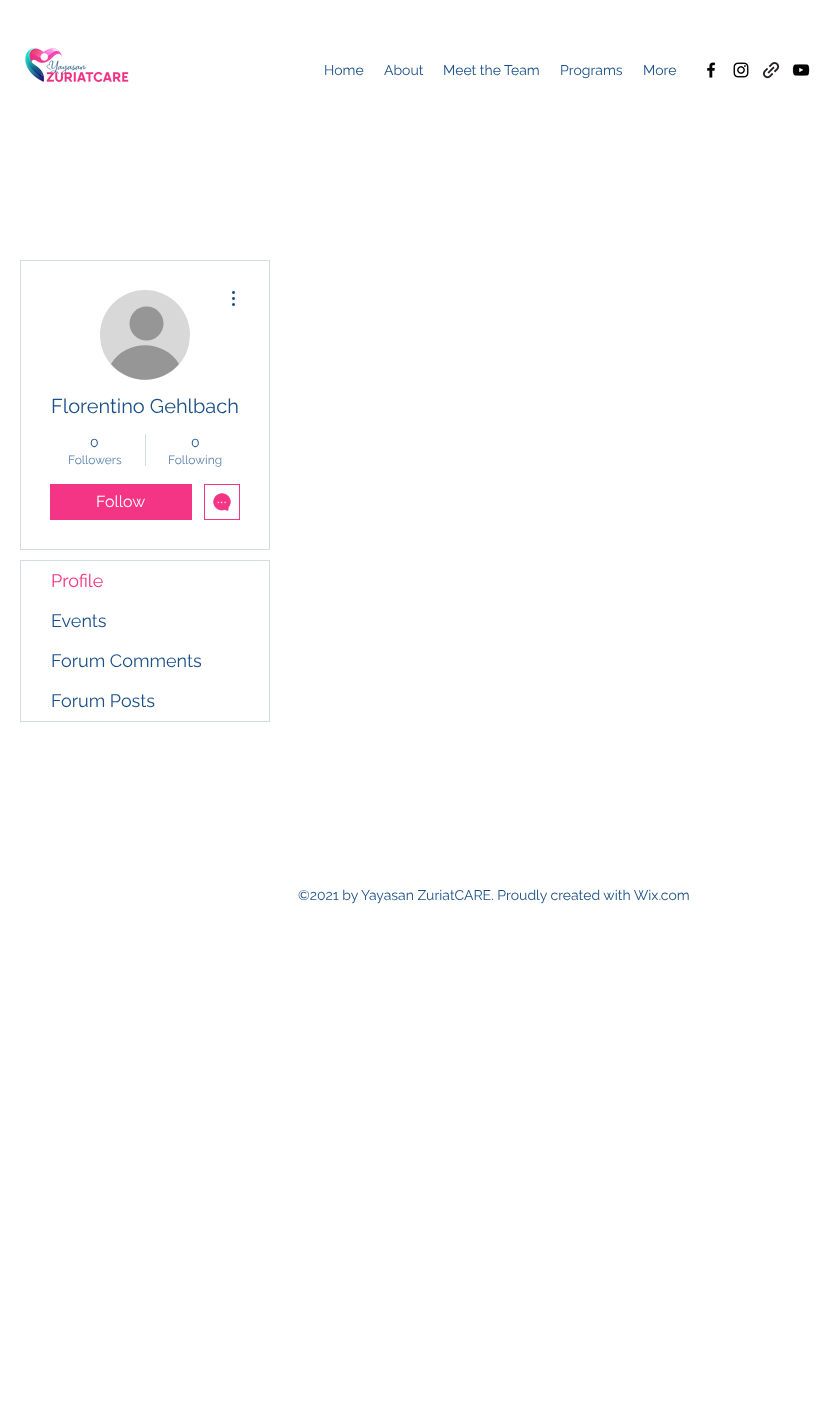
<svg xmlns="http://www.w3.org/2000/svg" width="824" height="1409">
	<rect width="100%" height="100%" fill="#FFFFFF" />
	<image x="25" y="48" width="104" height="34" href="assets/img1.png" />
	<g font-family="Raleway" font-size="14" fill="#194F87">
		<text x="324" y="75">Home</text>
		<text x="384" y="75">About</text>
		<text x="443" y="75">Meet the Team</text>
		<text x="560" y="75">Programs</text>
		<text x="643" y="75">More</text>
	</g>
	<image x="707" y="62" width="9" height="16" href="assets/img2.png" />
	<image x="733" y="62" width="16" height="16" href="assets/img3.png" />
	<image x="762" y="61" width="18" height="18" href="assets/img4.png" />
	<image x="792" y="64" width="18" height="12" href="assets/img5.png" />
	<rect x="20.5" y="260.5" width="249" height="289" fill="none" stroke="#D1DCE7" />
	<circle cx="145" cy="335" r="45" fill="#D8D8D8" />
	<circle cx="146.5" cy="323.5" r="17" fill="#969696" />
	<path d="M179 364C161 385 129 385 111 364C126 339 164 339 179 364Z" fill="#969696" />
	<image x="232" y="291" width="3" height="15" href="assets/img6.png" />
	<text x="51" y="413" font-family="Raleway" font-size="20" fill="#194F87">Florentino Gehlbach</text>
	<text x="90" y="447" font-family="Raleway" font-size="14" fill="#194F87">0</text>
	<text x="68" y="464" font-family="Raleway" font-size="12" fill="#5E84AB">Followers</text>
	<rect x="145" y="434" width="1" height="32" fill="#D1DCE7" />
	<text x="191" y="447" font-family="Raleway" font-size="14" fill="#194F87">0</text>
	<text x="168" y="464" font-family="Raleway" font-size="12" fill="#5E84AB">Following</text>
	<rect x="50" y="484" width="142" height="36" fill="#F43484" />
	<text x="96" y="507" font-family="Raleway" font-size="16" fill="#FFFFFF">Follow</text>
	<rect x="204.5" y="484.5" width="35" height="35" fill="none" stroke="#F43484" />
	<image x="213" y="493" width="18" height="18" href="assets/img7.png" />
	<rect x="20.5" y="560.5" width="249" height="161" fill="none" stroke="#D1DCE7" />
	<text x="51" y="587" font-family="Raleway" font-size="18" fill="#F43484">Profile</text>
	<g font-family="Raleway" font-size="18" fill="#194F87">
		<text x="51" y="627">Events</text>
		<text x="51" y="667">Forum Comments</text>
		<text x="51" y="707">Forum Posts</text>
	</g>
	<text x="298" y="900" font-family="Raleway" font-size="14" fill="#194F87">©2021 by Yayasan ZuriatCARE. Proudly created with Wix.com</text>
</svg>
